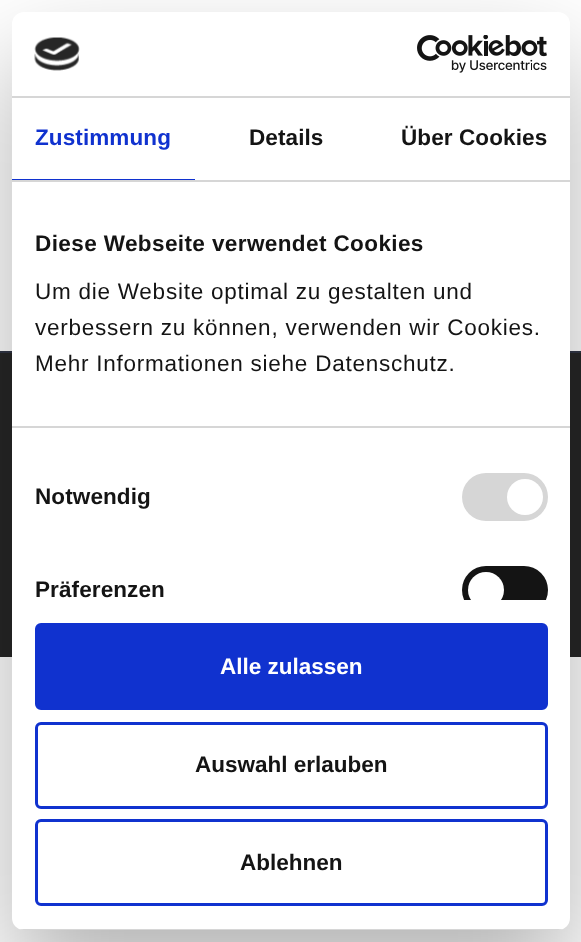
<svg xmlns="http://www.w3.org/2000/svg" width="581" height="942">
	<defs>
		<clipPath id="clip1"><rect x="12" y="182" width="558" height="418" /></clipPath>
		<clipPath id="clip2"><rect x="12" y="12" width="558" height="918" rx="12" /></clipPath>
	</defs>
	<rect width="100%" height="100%" fill="#FFFFFF" />
	<rect x="0" y="353" width="581" height="304" fill="#272727" />
	<rect x="0" y="351" width="581" height="2" fill="#313646" />
	<rect x="12" y="60" width="558" height="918" rx="12" fill="#000000" fill-opacity="0.3" filter="blur(51px)" />
	<rect x="12" y="12" width="558" height="918" rx="12" fill="#FFFFFF" />
	<rect x="12" y="96" width="558" height="2" fill="#D6D6D6" />
	<image x="34" y="37" width="46" height="34" href="assets/img1.png" />
	<image x="417" y="35" width="130" height="38" href="assets/img2.png" />
	<rect x="12" y="180" width="558" height="2" fill="#D6D6D6" />
	<rect x="12" y="179" width="183" height="1" fill="#1032CF" />
	<text x="35" y="145" font-family="Liberation Sans" font-size="22.5" font-weight="700" letter-spacing="0.1" fill="#1032CF">Zustimmung</text>
	<g font-family="Liberation Sans" font-size="22.5" font-weight="700" letter-spacing="0.1" fill="#141414">
		<text x="249" y="145">Details</text>
		<text x="401" y="145">Über Cookies</text>
	</g>
	<rect x="12" y="426" width="558" height="2" fill="#D6D6D6" />
	<text x="35" y="251" font-family="Liberation Sans" font-size="22.5" font-weight="700" letter-spacing="0.4" fill="#141414">Diese Webseite verwendet Cookies</text>
	<g font-family="Liberation Sans" font-size="22.5" letter-spacing="0.75" fill="#141414">
		<text x="35" y="299">Um die Website optimal zu gestalten und</text>
		<text x="35" y="335">verbessern zu können, verwenden wir Cookies.</text>
		<text x="35" y="371">Mehr Informationen siehe Datenschutz.</text>
	</g>
	<text x="35" y="504" font-family="Liberation Sans" font-size="22.5" font-weight="700" letter-spacing="0.1" fill="#141414">Notwendig</text>
	<rect x="462" y="473" width="86" height="48" rx="24" fill="#D6D6D6" />
	<circle cx="525" cy="497" r="18" fill="#FFFFFF" />
	<text x="35" y="597" font-family="Liberation Sans" font-size="22.5" font-weight="700" letter-spacing="0.1" fill="#141414">Präferenzen</text>
	<g clip-path="url(#clip1)">
		<rect x="462" y="566" width="86" height="48" rx="24" fill="#141414" />
		<circle cx="486" cy="590" r="18" fill="#FFFFFF" />
	</g>
	<g clip-path="url(#clip2)">
		<rect x="12" y="929" width="558" height="1" fill="#D6D6D6" />
	</g>
	<rect x="36.5" y="624.5" width="510" height="84" rx="4.5" fill="#1032CF" stroke="#1032CF" stroke-width="3" />
	<text x="220" y="674" font-family="Liberation Sans" font-size="22.5" font-weight="700" fill="#FFFFFF">Alle zulassen</text>
	<rect x="36.5" y="723.5" width="510" height="84" rx="4.5" fill="none" stroke="#1032CF" stroke-width="3" />
	<text x="195" y="772" font-family="Liberation Sans" font-size="22.5" font-weight="700" fill="#141414">Auswahl erlauben</text>
	<rect x="36.5" y="820.5" width="510" height="84" rx="4.5" fill="none" stroke="#1032CF" stroke-width="3" />
	<text x="240" y="870" font-family="Liberation Sans" font-size="22.5" font-weight="700" fill="#141414">Ablehnen</text>
</svg>
